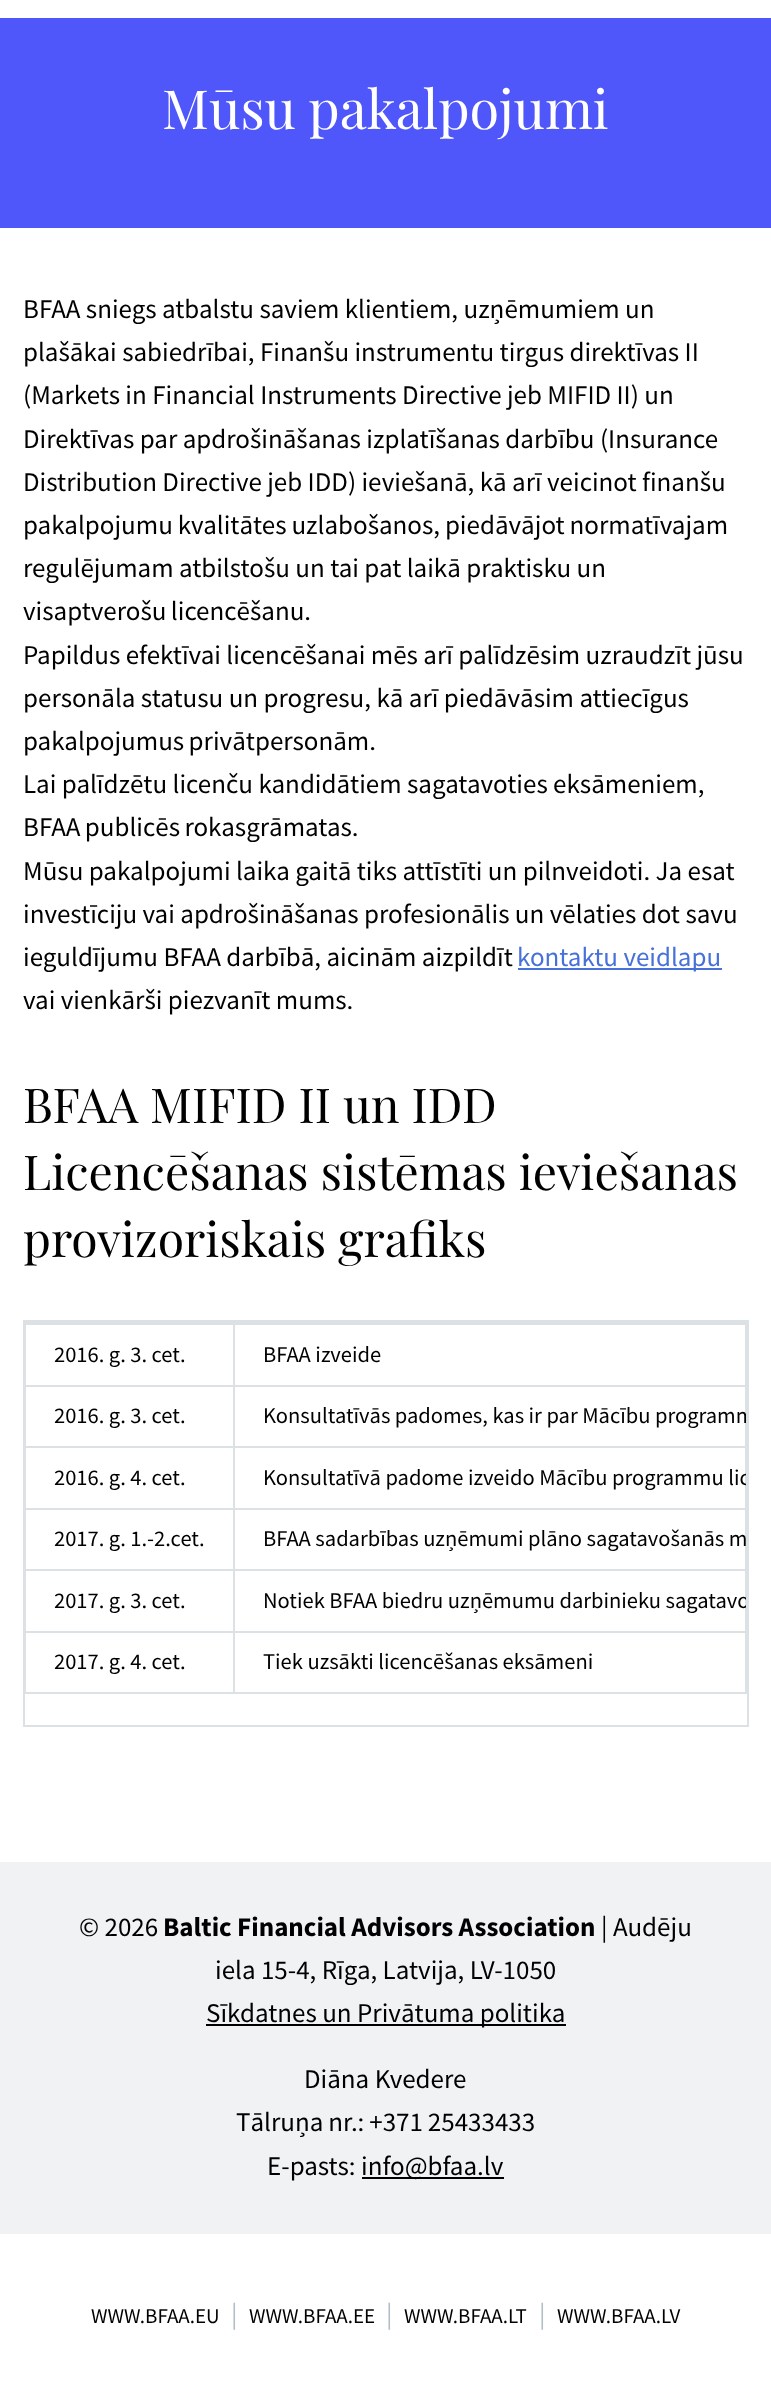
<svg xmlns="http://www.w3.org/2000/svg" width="771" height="2395">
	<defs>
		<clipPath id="clip1"><rect x="26" y="1323" width="720" height="369" /></clipPath>
	</defs>
	<rect width="100%" height="100%" fill="#FFFFFF" />
	<rect x="0" y="18" width="771" height="210" fill="#4F57FB" />
	<text x="162" y="129" word-spacing="-1" font-family="Playfair Display" font-size="54" fill="#FFFFFF">Mūsu pakalpojumi</text>
	<g font-family="Source Sans Pro" font-size="27" fill="#000000">
		<text x="23" y="318">BFAA sniegs atbalstu saviem klientiem, uzņēmumiem un</text>
		<text x="23" y="361">plašākai sabiedrībai, Finanšu instrumentu tirgus direktīvas II</text>
		<text x="23" y="404">(Markets in Financial Instruments Directive jeb MIFID II) un</text>
		<text x="23" y="448">Direktīvas par apdrošināšanas izplatīšanas darbību (Insurance</text>
		<text x="23" y="491">Distribution Directive jeb IDD) ieviešanā, kā arī veicinot finanšu</text>
		<text x="23" y="534" word-spacing="-0.5">pakalpojumu kvalitātes uzlabošanos, piedāvājot normatīvajam</text>
		<text x="23" y="577">regulējumam atbilstošu un tai pat laikā praktisku un</text>
		<text x="23" y="620" word-spacing="-1">visaptverošu licencēšanu.</text>
		<text x="23" y="664">Papildus efektīvai licencēšanai mēs arī palīdzēsim uzraudzīt jūsu</text>
		<text x="23" y="707">personāla statusu un progresu, kā arī piedāvāsim attiecīgus</text>
		<text x="23" y="750" word-spacing="-1">pakalpojumus privātpersonām.</text>
		<text x="23" y="793">Lai palīdzētu licenču kandidātiem sagatavoties eksāmeniem,</text>
		<text x="23" y="836" word-spacing="-1">BFAA publicēs rokasgrāmatas.</text>
		<text x="23" y="880">Mūsu pakalpojumi laika gaitā tiks attīstīti un pilnveidoti. Ja esat</text>
		<text x="23" y="923">investīciju vai apdrošināšanas profesionālis un vēlaties dot savu</text>
		<text x="23" y="966">ieguldījumu BFAA darbībā, aicinām aizpildīt</text>
	</g>
	<rect x="518" y="968" width="204" height="2" fill="#4770D8" />
	<text x="517" y="966" font-family="Source Sans Pro" font-size="27" fill="#4770D8">kontaktu veidlapu</text>
	<text x="23" y="1009" font-family="Source Sans Pro" font-size="27" fill="#000000">vai vienkārši piezvanīt mums.</text>
	<g font-family="Playfair Display" font-size="48" fill="#000000">
		<text x="23" y="1123">BFAA MIFID II un IDD</text>
		<text x="23" y="1190">Licencēšanas sistēmas ieviešanas</text>
		<text x="23" y="1257">provizoriskais grafiks</text>
	</g>
	<rect x="24" y="1321" width="724" height="405" fill="none" stroke="#DCE1E5" stroke-width="2" />
	<rect x="25" y="1323" width="721" height="370" fill="none" stroke="#DCE1E5" stroke-width="2" />
	<rect x="233" y="1324" width="513" height="1" fill="#DCE1E5" />
	<rect x="233" y="1385" width="513" height="2" fill="#DCE1E5" />
	<rect x="233" y="1446" width="513" height="2" fill="#DCE1E5" />
	<rect x="233" y="1508" width="513" height="2" fill="#DCE1E5" />
	<rect x="233" y="1569" width="513" height="2" fill="#DCE1E5" />
	<rect x="233" y="1631" width="513" height="2" fill="#DCE1E5" />
	<rect x="233" y="1631" width="2" height="61" fill="#DCE1E5" />
	<rect x="26" y="1631" width="208" height="2" fill="#DCE1E5" />
	<rect x="233" y="1569" width="2" height="63" fill="#DCE1E5" />
	<rect x="26" y="1569" width="208" height="2" fill="#DCE1E5" />
	<rect x="233" y="1508" width="2" height="63" fill="#DCE1E5" />
	<rect x="26" y="1508" width="208" height="2" fill="#DCE1E5" />
	<rect x="233" y="1446" width="2" height="63" fill="#DCE1E5" />
	<rect x="26" y="1446" width="208" height="2" fill="#DCE1E5" />
	<rect x="233" y="1385" width="2" height="63" fill="#DCE1E5" />
	<rect x="26" y="1385" width="208" height="2" fill="#DCE1E5" />
	<rect x="233" y="1323" width="2" height="63" fill="#DCE1E5" />
	<rect x="26" y="1324" width="208" height="1" fill="#DCE1E5" />
	<g font-family="Source Sans Pro" font-size="22.5" fill="#000000">
		<text x="54" y="1362">2016. g. 3. cet.</text>
		<text x="263" y="1362">BFAA izveide</text>
		<text x="54" y="1423">2016. g. 3. cet.</text>
	</g>
	<g clip-path="url(#clip1)">
		<text x="263" y="1423" font-family="Source Sans Pro" font-size="22.5" fill="#000000">Konsultatīvās padomes, kas ir par Mācību programm</text>
	</g>
	<text x="54" y="1485" font-family="Source Sans Pro" font-size="22.5" fill="#000000">2016. g. 4. cet.</text>
	<g clip-path="url(#clip1)">
		<text x="263" y="1485" font-family="Source Sans Pro" font-size="22.5" fill="#000000">Konsultatīvā padome izveido Mācību programmu lic</text>
	</g>
	<g font-family="Source Sans Pro" font-size="22.5" fill="#000000">
		<text x="54" y="1546">2017. g. 1.-2.cet.</text>
		<text x="263" y="1546">BFAA sadarbības uzņēmumi plāno sagatavošanās m</text>
		<text x="54" y="1608">2017. g. 3. cet.</text>
	</g>
	<g clip-path="url(#clip1)">
		<text x="263" y="1608" font-family="Source Sans Pro" font-size="22.5" fill="#000000">Notiek BFAA biedru uzņēmumu darbinieku sagatavo</text>
	</g>
	<g font-family="Source Sans Pro" font-size="22.5" fill="#000000">
		<text x="54" y="1669">2017. g. 4. cet.</text>
		<text x="263" y="1669">Tiek uzsākti licencēšanas eksāmeni</text>
	</g>
	<rect x="0" y="1862" width="771" height="372" fill="#F0F2F4" />
	<text x="79" y="1936" font-family="Source Sans Pro" font-size="27" fill="#000000">© 2026</text>
	<text x="163" y="1936" font-family="Source Sans Pro" font-size="27" font-weight="700" fill="#000000">Baltic Financial Advisors Association</text>
	<g font-family="Source Sans Pro" font-size="27" fill="#000000">
		<text x="601" y="1936">| Audēju</text>
		<text x="215" y="1979">iela 15-4, Rīga, Latvija, LV-1050</text>
	</g>
	<rect x="206" y="2024" width="360" height="2" fill="#000000" />
	<g font-family="Source Sans Pro" font-size="27" fill="#000000">
		<text x="206" y="2022">Sīkdatnes un Privātuma politika</text>
		<text x="304" y="2088">Diāna Kvedere</text>
		<text x="236" y="2131" word-spacing="-0.5">Tālruņa nr.: +371 25433433</text>
		<text x="267" y="2175">E-pasts:</text>
	</g>
	<rect x="362" y="2177" width="142" height="2" fill="#000000" />
	<text x="361" y="2175" font-family="Source Sans Pro" font-size="27" fill="#000000">info@bfaa.lv</text>
	<text x="91" y="2323" font-family="Source Sans Pro" font-size="21" fill="#000000">WWW.BFAA.EU</text>
	<text x="231" y="2323" font-family="Source Sans Pro" font-size="27" fill="#B4BEC5">|</text>
	<text x="249" y="2323" font-family="Source Sans Pro" font-size="21" fill="#000000">WWW.BFAA.EE</text>
	<text x="386" y="2323" font-family="Source Sans Pro" font-size="27" fill="#B4BEC5">|</text>
	<text x="404" y="2323" font-family="Source Sans Pro" font-size="21" fill="#000000">WWW.BFAA.LT</text>
	<text x="539" y="2323" font-family="Source Sans Pro" font-size="27" fill="#B4BEC5">|</text>
	<text x="557" y="2323" font-family="Source Sans Pro" font-size="21" fill="#000000">WWW.BFAA.LV</text>
</svg>
